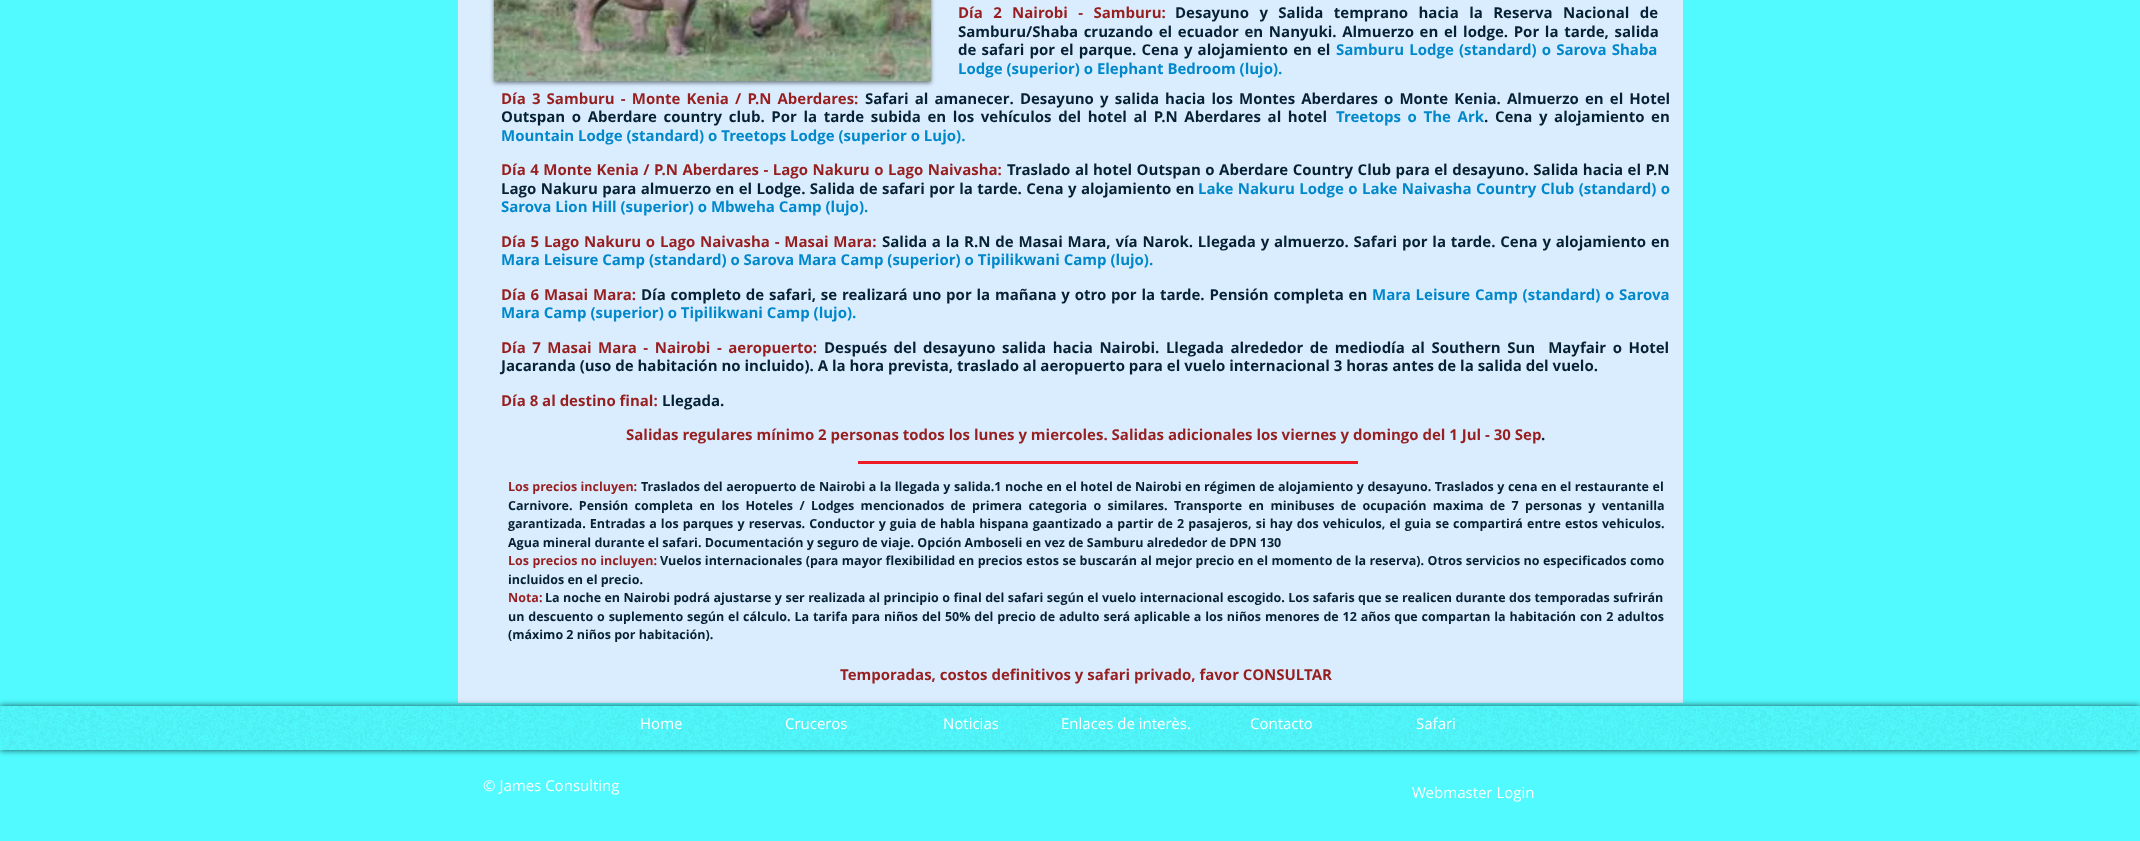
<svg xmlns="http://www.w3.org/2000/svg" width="2140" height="841">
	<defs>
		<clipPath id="clip1"><path d="M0 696H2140V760H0ZM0 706H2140V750H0Z" clip-rule="evenodd" /></clipPath>
	</defs>
	<rect width="100%" height="100%" fill="#50FAFE" />
	<rect x="458" y="0" width="1225" height="703" fill="#DAEDFF" />
	<rect x="494" y="-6" width="437" height="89" fill="#000000" fill-opacity="0.5" filter="blur(2px)" />
	<image x="493" y="0" width="439" height="82" href="assets/img1.png" />
	<text x="958" y="18" word-spacing="6.5" font-family="Open Sans" font-size="15" font-weight="700" fill="#971F1F">Día 2 Nairobi - Samburu:</text>
	<g font-family="Open Sans" font-size="15" font-weight="700" fill="#062134">
		<text x="1175" y="18" word-spacing="6.5">Desayuno y Salida temprano hacia la Reserva Nacional de</text>
		<text x="958" y="37" word-spacing="1.75">Samburu/Shaba cruzando el ecuador en Nanyuki. Almuerzo en el lodge. Por la tarde, salida</text>
		<text x="958" y="55" word-spacing="1.25">de safari por el parque. Cena y alojamiento en el</text>
	</g>
	<g font-family="Open Sans" font-size="15" font-weight="700" fill="#0088CB">
		<text x="1336" y="55" word-spacing="1.25">Samburu Lodge (standard) o Sarova Shaba</text>
		<text x="958" y="74">Lodge (superior) o Elephant Bedroom (lujo).</text>
	</g>
	<text x="501" y="104" word-spacing="2.25" font-family="Open Sans" font-size="15" font-weight="700" fill="#971F1F">Día 3 Samburu - Monte Kenia / P.N Aberdares:</text>
	<g font-family="Open Sans" font-size="15" font-weight="700" fill="#062134">
		<text x="865" y="104" word-spacing="2.25">Safari al amanecer. Desayuno y salida hacia los Montes Aberdares o Monte Kenia. Almuerzo en el Hotel</text>
		<text x="501" y="122" word-spacing="2.75">Outspan o Aberdare country club. Por la tarde subida en los vehículos del hotel al P.N Aberdares al hotel</text>
	</g>
	<text x="1336" y="122" word-spacing="2.75" font-family="Open Sans" font-size="15" font-weight="700" fill="#0088CB">Treetops o The Ark</text>
	<text x="1484" y="122" word-spacing="2.75" font-family="Open Sans" font-size="15" font-weight="700" fill="#062134">. Cena y alojamiento en</text>
	<text x="501" y="141" font-family="Open Sans" font-size="15" font-weight="700" fill="#0088CB">Mountain Lodge (standard) o Treetops Lodge (superior o Lujo).</text>
	<text x="501" y="175" word-spacing="0.6" font-family="Open Sans" font-size="15" font-weight="700" fill="#971F1F">Día 4 Monte Kenia / P.N Aberdares - Lago Nakuru o Lago Naivasha:</text>
	<g font-family="Open Sans" font-size="15" font-weight="700" fill="#062134">
		<text x="1007" y="175" word-spacing="0.6">Traslado al hotel Outspan o Aberdare Country Club para el desayuno. Salida hacia el P.N</text>
		<text x="501" y="194" word-spacing="0.5">Lago Nakuru para almuerzo en el Lodge. Salida de safari por la tarde. Cena y alojamiento en</text>
	</g>
	<g font-family="Open Sans" font-size="15" font-weight="700" fill="#0088CB">
		<text x="1198" y="194" word-spacing="0.5">Lake Nakuru Lodge o Lake Naivasha Country Club (standard) o</text>
		<text x="501" y="212">Sarova Lion Hill (superior) o Mbweha Camp (lujo).</text>
	</g>
	<text x="501" y="247" word-spacing="0.9" font-family="Open Sans" font-size="15" font-weight="700" fill="#971F1F">Día 5 Lago Nakuru o Lago Naivasha - Masai Mara:</text>
	<text x="882" y="247" word-spacing="0.9" font-family="Open Sans" font-size="15" font-weight="700" fill="#062134">Salida a la R.N de Masai Mara, vía Narok. Llegada y almuerzo. Safari por la tarde. Cena y alojamiento en</text>
	<text x="501" y="265" font-family="Open Sans" font-size="15" font-weight="700" fill="#0088CB">Mara Leisure Camp (standard) o Sarova Mara Camp (superior) o Tipilikwani Camp (lujo).</text>
	<text x="501" y="300" word-spacing="0.9" font-family="Open Sans" font-size="15" font-weight="700" fill="#971F1F">Día 6 Masai Mara:</text>
	<text x="641" y="300" word-spacing="0.9" font-family="Open Sans" font-size="15" font-weight="700" fill="#062134">Día completo de safari, se realizará uno por la mañana y otro por la tarde. Pensión completa en</text>
	<g font-family="Open Sans" font-size="15" font-weight="700" fill="#0088CB">
		<text x="1372" y="300" word-spacing="0.9">Mara Leisure Camp (standard) o Sarova</text>
		<text x="501" y="318">Mara Camp (superior) o Tipilikwani Camp (lujo).</text>
	</g>
	<text x="501" y="353" word-spacing="2.6" font-family="Open Sans" font-size="15" font-weight="700" fill="#971F1F">Día 7 Masai Mara - Nairobi - aeropuerto:</text>
	<g font-family="Open Sans" font-size="15" font-weight="700" fill="#062134">
		<text x="824" y="353" word-spacing="2.6" xml:space="preserve">Después del desayuno salida hacia Nairobi. Llegada alrededor de mediodía al Southern Sun  Mayfair o Hotel</text>
		<text x="501" y="371">Jacaranda (uso de habitación no incluido). A la hora prevista, traslado al aeropuerto para el vuelo internacional 3 horas antes de la salida del vuelo.</text>
	</g>
	<text x="501" y="406" font-family="Open Sans" font-size="15" font-weight="700" fill="#971F1F">Día 8 al destino final:</text>
	<text x="662" y="406" font-family="Open Sans" font-size="15" font-weight="700" fill="#062134">Llegada.</text>
	<text x="626" y="440" font-family="Open Sans" font-size="15" font-weight="700" fill="#971F1F">Salidas regulares mínimo 2 personas todos los lunes y miercoles. Salidas adicionales los viernes y domingo del 1 Jul - 30 Sep</text>
	<text x="1541" y="440" font-family="Open Sans" font-size="15" font-weight="700" fill="#062134">.</text>
	<rect x="858" y="461" width="500" height="3" fill="#ED1C24" />
	<text x="508" y="491" font-family="Open Sans" font-size="12.5" font-weight="700" fill="#971F1F">Los precios incluyen:</text>
	<g font-family="Open Sans" font-size="12.5" font-weight="700" fill="#062134">
		<text x="641" y="491" word-spacing="0.25">Traslados del aeropuerto de Nairobi a la llegada y salida.1 noche en el hotel de Nairobi en régimen de alojamiento y desayuno. Traslados y cena en el restaurante el</text>
		<text x="508" y="510" word-spacing="3.1">Carnivore. Pensión completa en los Hoteles / Lodges mencionados de primera categoria o similares. Transporte en minibuses de ocupación maxima de 7 personas y ventanilla</text>
		<text x="508" y="528" word-spacing="0.85">garantizada. Entradas a los parques y reservas. Conductor y guia de habla hispana gaantizado a partir de 2 pasajeros, si hay dos vehiculos, el guia se compartirá entre estos vehiculos.</text>
		<text x="508" y="547">Agua mineral durante el safari. Documentación y seguro de viaje. Opción Amboseli en vez de Samburu alrededor de DPN 130</text>
	</g>
	<text x="508" y="565" word-spacing="0.2" font-family="Open Sans" font-size="12.5" font-weight="700" fill="#971F1F">Los precios no incluyen:</text>
	<g font-family="Open Sans" font-size="12.5" font-weight="700" fill="#062134">
		<text x="660" y="565" word-spacing="0.2">Vuelos internacionales (para mayor flexibilidad en precios estos se buscarán al mejor precio en el momento de la reserva). Otros servicios no especificados como</text>
		<text x="508" y="584">incluidos en el precio.</text>
	</g>
	<text x="508" y="602" font-family="Open Sans" font-size="12.5" font-weight="700" fill="#971F1F">Nota:</text>
	<g font-family="Open Sans" font-size="12.5" font-weight="700" fill="#062134">
		<text x="545" y="602" word-spacing="0.2">La noche en Nairobi podrá ajustarse y ser realizada al principio o final del safari según el vuelo internacional escogido. Los safaris que se realicen durante dos temporadas sufrirán</text>
		<text x="508" y="621" word-spacing="0.6">un descuento o suplemento según el cálculo. La tarifa para niños del 50% del precio de adulto será aplicable a los niños menores de 12 años que compartan la habitación con 2 adultos</text>
		<text x="508" y="639">(máximo 2 niños por habitación).</text>
	</g>
	<text x="840" y="680" font-family="Open Sans" font-size="15" font-weight="700" fill="#971F1F">Temporadas, costos definitivos y safari privado, favor CONSULTAR</text>
	<g clip-path="url(#clip1)">
		<rect x="0" y="706" width="2140" height="44" fill="#000000" fill-opacity="0.7" filter="blur(3px)" />
	</g>
	<image x="0" y="706" width="2140" height="44" href="assets/img2.png" />
	<g font-family="Open Sans" font-size="15" fill="#FFFFFF">
		<text x="640" y="729">Home</text>
		<text x="785" y="729">Cruceros</text>
		<text x="943" y="729">Noticias</text>
		<text x="1061" y="729">Enlaces de interès.</text>
		<text x="1250" y="729">Contacto</text>
		<text x="1416" y="729">Safari</text>
		<text x="483" y="791">© James Consulting</text>
		<text x="1412" y="798">Webmaster Login</text>
	</g>
</svg>
